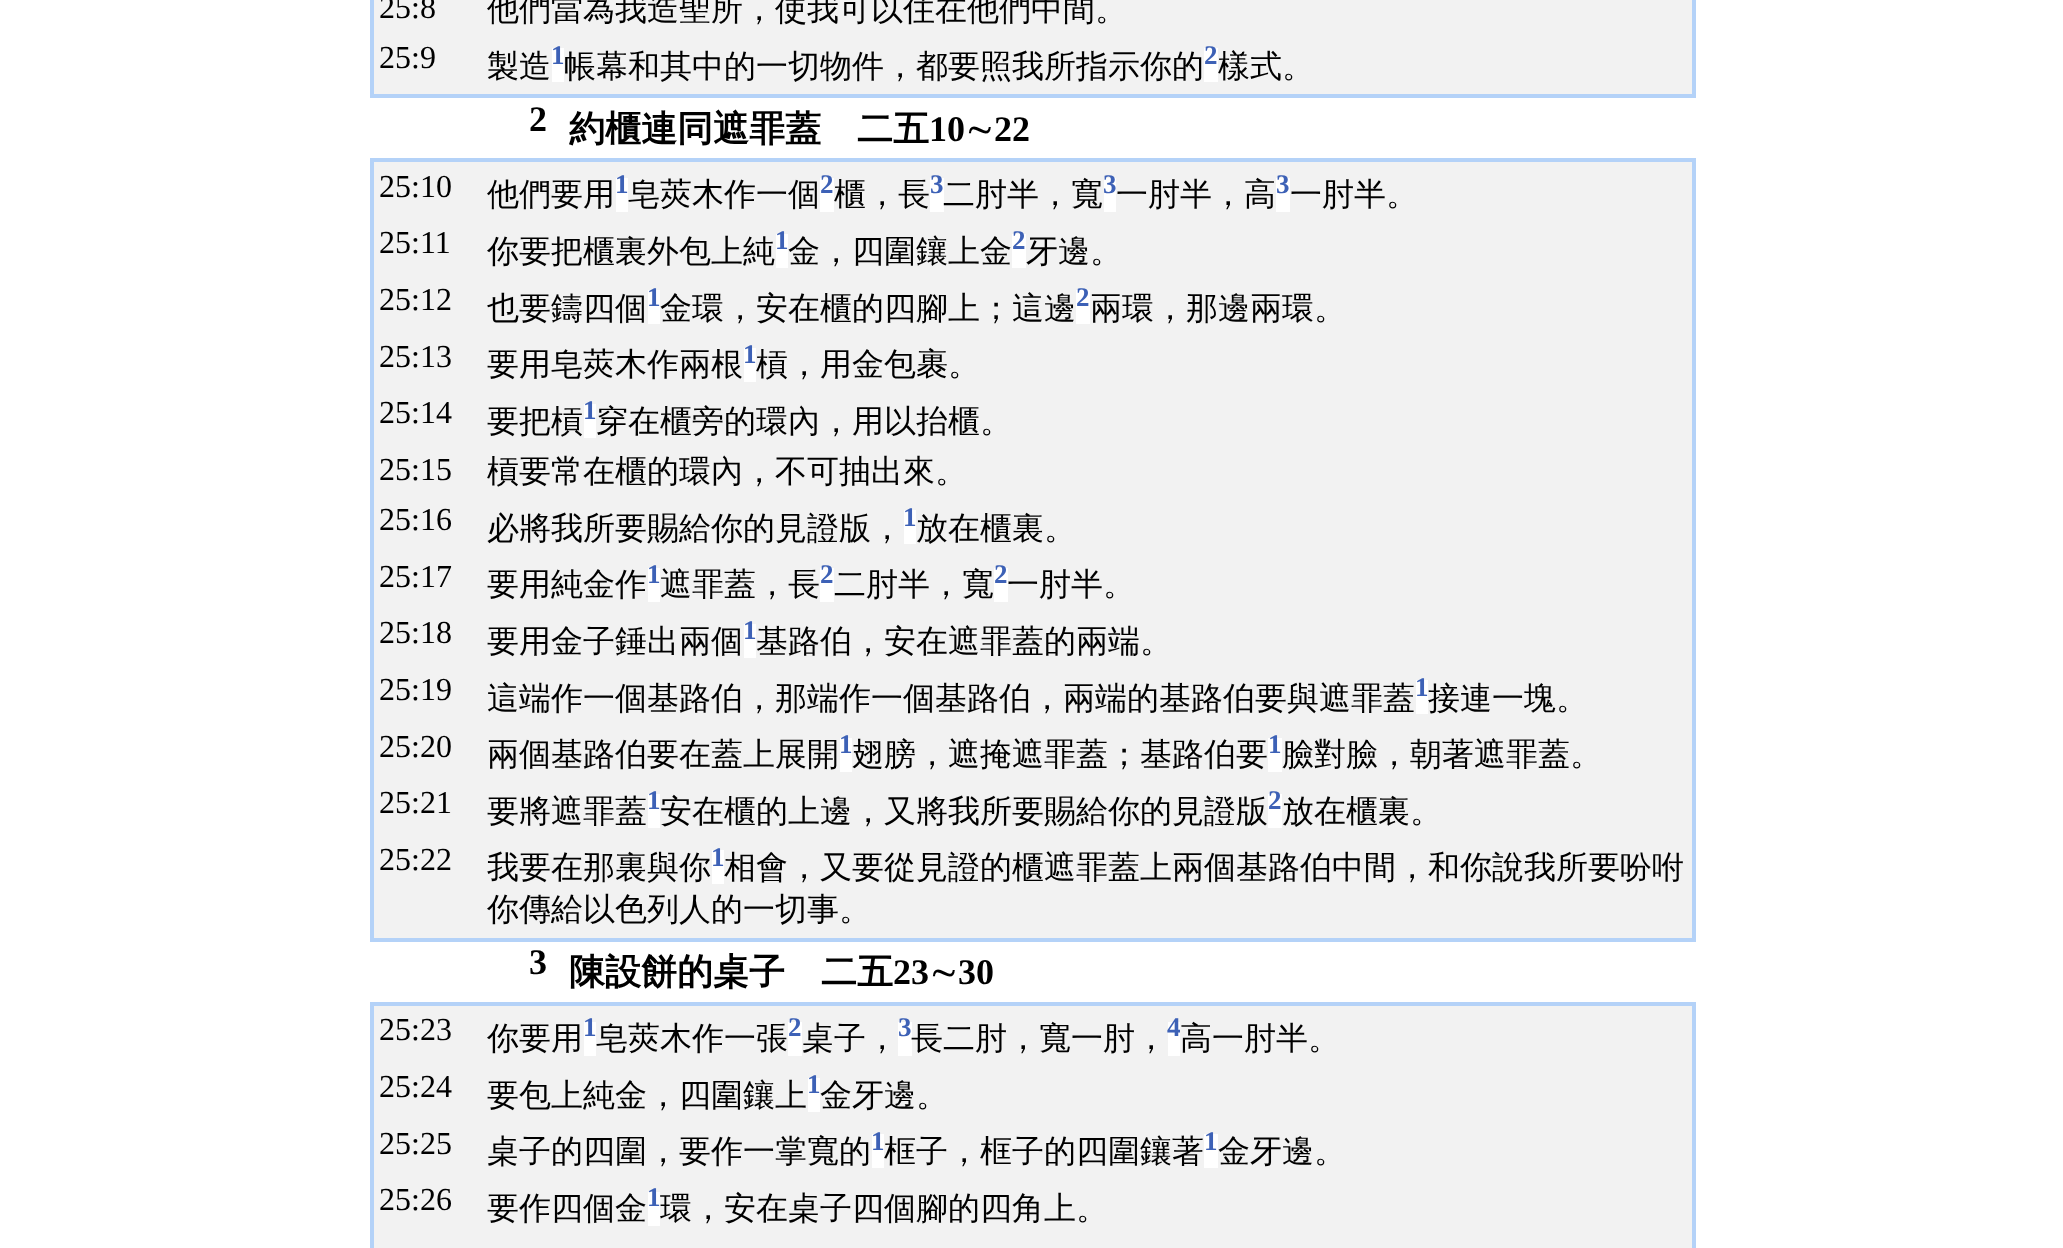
<svg xmlns="http://www.w3.org/2000/svg" width="2063" height="1248">
	<rect width="100%" height="100%" fill="#FFFFFF" />
	<rect x="374" y="0" width="1318" height="94" fill="#F2F2F2" />
	<rect x="371" y="-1" width="1324" height="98" fill="none" stroke="#B4D2F8" stroke-width="2" />
	<rect x="373" y="-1" width="1320" height="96" fill="none" stroke="#B4D2F8" stroke-width="2" />
	<text x="379" y="18" font-family="Liberation Serif" font-size="32" fill="#000000">25:8</text>
	<text x="487" y="20" font-family="WenQuanYi Zen Hei" font-size="32" font-weight="500" fill="#000000">他們當為我造聖所，使我可以住在他們中間。</text>
	<text x="379" y="68" font-family="Liberation Serif" font-size="32" fill="#000000">25:9</text>
	<text x="487" y="77" font-family="WenQuanYi Zen Hei" font-size="32" font-weight="500" fill="#000000">製造</text>
	<rect x="552" y="48" width="12" height="34" fill="#FFFFFF" />
	<text x="551" y="64" font-family="Liberation Serif" font-size="27" font-weight="700" fill="#3D61B6">1</text>
	<text x="564" y="77" font-family="WenQuanYi Zen Hei" font-size="32" font-weight="500" fill="#000000">帳幕和其中的一切物件，都要照我所指示你的</text>
	<rect x="1204" y="48" width="14" height="34" fill="#FFFFFF" />
	<text x="1204" y="64" font-family="Liberation Serif" font-size="27" font-weight="700" fill="#3D61B6">2</text>
	<text x="1218" y="77" font-family="WenQuanYi Zen Hei" font-size="32" font-weight="500" fill="#000000">樣式。</text>
	<text x="529" y="131" font-family="Liberation Serif" font-size="36" font-weight="700" fill="#000000">2</text>
	<text x="569" y="141" font-family="WenQuanYi Zen Hei" font-size="36" font-weight="700" fill="#000000">約櫃連同遮罪蓋　二五</text>
	<text x="929" y="141" font-family="Liberation Serif" font-size="36" font-weight="700" fill="#000000">10</text>
	<text x="965" y="141" font-family="WenQuanYi Zen Hei" font-size="36" font-weight="700" fill="#000000">∼</text>
	<text x="994" y="141" font-family="Liberation Serif" font-size="36" font-weight="700" fill="#000000">22</text>
	<rect x="374" y="162" width="1318" height="776" fill="#F2F2F2" />
	<rect x="371" y="159" width="1324" height="782" fill="none" stroke="#B4D2F8" stroke-width="2" />
	<rect x="373" y="161" width="1320" height="778" fill="none" stroke="#B4D2F8" stroke-width="2" />
	<text x="379" y="197" font-family="Liberation Serif" font-size="32" fill="#000000">25:10</text>
	<text x="487" y="205" font-family="WenQuanYi Zen Hei" font-size="32" font-weight="500" fill="#000000">他們要用</text>
	<rect x="616" y="178" width="12" height="34" fill="#FFFFFF" />
	<text x="615" y="193" font-family="Liberation Serif" font-size="27" font-weight="700" fill="#3D61B6">1</text>
	<text x="628" y="205" font-family="WenQuanYi Zen Hei" font-size="32" font-weight="500" fill="#000000">皂莢木作一個</text>
	<rect x="820" y="178" width="14" height="34" fill="#FFFFFF" />
	<text x="820" y="193" font-family="Liberation Serif" font-size="27" font-weight="700" fill="#3D61B6">2</text>
	<text x="834" y="205" font-family="WenQuanYi Zen Hei" font-size="32" font-weight="500" fill="#000000">櫃，長</text>
	<rect x="930" y="178" width="14" height="34" fill="#FFFFFF" />
	<text x="930" y="193" font-family="Liberation Serif" font-size="27" font-weight="700" fill="#3D61B6">3</text>
	<text x="943" y="205" font-family="WenQuanYi Zen Hei" font-size="32" font-weight="500" fill="#000000">二肘半，寬</text>
	<rect x="1104" y="178" width="12" height="34" fill="#FFFFFF" />
	<text x="1103" y="193" font-family="Liberation Serif" font-size="27" font-weight="700" fill="#3D61B6">3</text>
	<text x="1116" y="205" font-family="WenQuanYi Zen Hei" font-size="32" font-weight="500" fill="#000000">一肘半，高</text>
	<rect x="1276" y="178" width="14" height="34" fill="#FFFFFF" />
	<text x="1276" y="193" font-family="Liberation Serif" font-size="27" font-weight="700" fill="#3D61B6">3</text>
	<text x="1290" y="205" font-family="WenQuanYi Zen Hei" font-size="32" font-weight="500" fill="#000000">一肘半。</text>
	<text x="379" y="253" font-family="Liberation Serif" font-size="32" fill="#000000">25:11</text>
	<text x="487" y="262" font-family="WenQuanYi Zen Hei" font-size="32" font-weight="500" fill="#000000">你要把櫃裏外包上純</text>
	<rect x="776" y="234" width="12" height="34" fill="#FFFFFF" />
	<text x="775" y="249" font-family="Liberation Serif" font-size="27" font-weight="700" fill="#3D61B6">1</text>
	<text x="788" y="262" font-family="WenQuanYi Zen Hei" font-size="32" font-weight="500" fill="#000000">金，四圍鑲上金</text>
	<rect x="1012" y="234" width="14" height="34" fill="#FFFFFF" />
	<text x="1012" y="249" font-family="Liberation Serif" font-size="27" font-weight="700" fill="#3D61B6">2</text>
	<text x="1026" y="262" font-family="WenQuanYi Zen Hei" font-size="32" font-weight="500" fill="#000000">牙邊。</text>
	<text x="379" y="310" font-family="Liberation Serif" font-size="32" fill="#000000">25:12</text>
	<text x="487" y="319" font-family="WenQuanYi Zen Hei" font-size="32" font-weight="500" fill="#000000">也要鑄四個</text>
	<rect x="648" y="290" width="12" height="34" fill="#FFFFFF" />
	<text x="647" y="306" font-family="Liberation Serif" font-size="27" font-weight="700" fill="#3D61B6">1</text>
	<text x="660" y="319" font-family="WenQuanYi Zen Hei" font-size="32" font-weight="500" fill="#000000">金環，安在櫃的四腳上；這邊</text>
	<rect x="1076" y="290" width="14" height="34" fill="#FFFFFF" />
	<text x="1076" y="306" font-family="Liberation Serif" font-size="27" font-weight="700" fill="#3D61B6">2</text>
	<text x="1090" y="319" font-family="WenQuanYi Zen Hei" font-size="32" font-weight="500" fill="#000000">兩環，那邊兩環。</text>
	<text x="379" y="367" font-family="Liberation Serif" font-size="32" fill="#000000">25:13</text>
	<text x="487" y="375" font-family="WenQuanYi Zen Hei" font-size="32" font-weight="500" fill="#000000">要用皂莢木作兩根</text>
	<rect x="744" y="348" width="12" height="34" fill="#FFFFFF" />
	<text x="743" y="363" font-family="Liberation Serif" font-size="27" font-weight="700" fill="#3D61B6">1</text>
	<text x="756" y="375" font-family="WenQuanYi Zen Hei" font-size="32" font-weight="500" fill="#000000">槓，用金包裹。</text>
	<text x="379" y="423" font-family="Liberation Serif" font-size="32" fill="#000000">25:14</text>
	<text x="487" y="432" font-family="WenQuanYi Zen Hei" font-size="32" font-weight="500" fill="#000000">要把槓</text>
	<rect x="584" y="404" width="12" height="34" fill="#FFFFFF" />
	<text x="583" y="419" font-family="Liberation Serif" font-size="27" font-weight="700" fill="#3D61B6">1</text>
	<text x="596" y="432" font-family="WenQuanYi Zen Hei" font-size="32" font-weight="500" fill="#000000">穿在櫃旁的環內，用以抬櫃。</text>
	<text x="379" y="480" font-family="Liberation Serif" font-size="32" fill="#000000">25:15</text>
	<text x="487" y="482" font-family="WenQuanYi Zen Hei" font-size="32" font-weight="500" fill="#000000">槓要常在櫃的環內，不可抽出來。</text>
	<text x="379" y="530" font-family="Liberation Serif" font-size="32" fill="#000000">25:16</text>
	<text x="487" y="539" font-family="WenQuanYi Zen Hei" font-size="32" font-weight="500" fill="#000000">必將我所要賜給你的見證版，</text>
	<rect x="904" y="510" width="12" height="34" fill="#FFFFFF" />
	<text x="903" y="526" font-family="Liberation Serif" font-size="27" font-weight="700" fill="#3D61B6">1</text>
	<text x="916" y="539" font-family="WenQuanYi Zen Hei" font-size="32" font-weight="500" fill="#000000">放在櫃裏。</text>
	<text x="379" y="587" font-family="Liberation Serif" font-size="32" fill="#000000">25:17</text>
	<text x="487" y="595" font-family="WenQuanYi Zen Hei" font-size="32" font-weight="500" fill="#000000">要用純金作</text>
	<rect x="648" y="568" width="12" height="34" fill="#FFFFFF" />
	<text x="647" y="583" font-family="Liberation Serif" font-size="27" font-weight="700" fill="#3D61B6">1</text>
	<text x="660" y="595" font-family="WenQuanYi Zen Hei" font-size="32" font-weight="500" fill="#000000">遮罪蓋，長</text>
	<rect x="820" y="568" width="14" height="34" fill="#FFFFFF" />
	<text x="820" y="583" font-family="Liberation Serif" font-size="27" font-weight="700" fill="#3D61B6">2</text>
	<text x="834" y="595" font-family="WenQuanYi Zen Hei" font-size="32" font-weight="500" fill="#000000">二肘半，寬</text>
	<rect x="994" y="568" width="14" height="34" fill="#FFFFFF" />
	<text x="994" y="583" font-family="Liberation Serif" font-size="27" font-weight="700" fill="#3D61B6">2</text>
	<text x="1007" y="595" font-family="WenQuanYi Zen Hei" font-size="32" font-weight="500" fill="#000000">一肘半。</text>
	<text x="379" y="643" font-family="Liberation Serif" font-size="32" fill="#000000">25:18</text>
	<text x="487" y="652" font-family="WenQuanYi Zen Hei" font-size="32" font-weight="500" fill="#000000">要用金子錘出兩個</text>
	<rect x="744" y="624" width="12" height="34" fill="#FFFFFF" />
	<text x="743" y="639" font-family="Liberation Serif" font-size="27" font-weight="700" fill="#3D61B6">1</text>
	<text x="756" y="652" font-family="WenQuanYi Zen Hei" font-size="32" font-weight="500" fill="#000000">基路伯，安在遮罪蓋的兩端。</text>
	<text x="379" y="700" font-family="Liberation Serif" font-size="32" fill="#000000">25:19</text>
	<text x="487" y="709" font-family="WenQuanYi Zen Hei" font-size="32" font-weight="500" fill="#000000">這端作一個基路伯，那端作一個基路伯，兩端的基路伯要與遮罪蓋</text>
	<rect x="1416" y="680" width="12" height="34" fill="#FFFFFF" />
	<text x="1415" y="696" font-family="Liberation Serif" font-size="27" font-weight="700" fill="#3D61B6">1</text>
	<text x="1428" y="709" font-family="WenQuanYi Zen Hei" font-size="32" font-weight="500" fill="#000000">接連一塊。</text>
	<text x="379" y="757" font-family="Liberation Serif" font-size="32" fill="#000000">25:20</text>
	<text x="487" y="765" font-family="WenQuanYi Zen Hei" font-size="32" font-weight="500" fill="#000000">兩個基路伯要在蓋上展開</text>
	<rect x="840" y="738" width="12" height="34" fill="#FFFFFF" />
	<text x="839" y="753" font-family="Liberation Serif" font-size="27" font-weight="700" fill="#3D61B6">1</text>
	<text x="852" y="765" font-family="WenQuanYi Zen Hei" font-size="32" font-weight="500" fill="#000000">翅膀，遮掩遮罪蓋；基路伯要</text>
	<rect x="1268" y="738" width="14" height="34" fill="#FFFFFF" />
	<text x="1268" y="753" font-family="Liberation Serif" font-size="27" font-weight="700" fill="#3D61B6">1</text>
	<text x="1282" y="765" font-family="WenQuanYi Zen Hei" font-size="32" font-weight="500" fill="#000000">臉對臉，朝著遮罪蓋。</text>
	<text x="379" y="813" font-family="Liberation Serif" font-size="32" fill="#000000">25:21</text>
	<text x="487" y="822" font-family="WenQuanYi Zen Hei" font-size="32" font-weight="500" fill="#000000">要將遮罪蓋</text>
	<rect x="648" y="794" width="12" height="34" fill="#FFFFFF" />
	<text x="647" y="809" font-family="Liberation Serif" font-size="27" font-weight="700" fill="#3D61B6">1</text>
	<text x="660" y="822" font-family="WenQuanYi Zen Hei" font-size="32" font-weight="500" fill="#000000">安在櫃的上邊，又將我所要賜給你的見證版</text>
	<rect x="1268" y="794" width="14" height="34" fill="#FFFFFF" />
	<text x="1268" y="809" font-family="Liberation Serif" font-size="27" font-weight="700" fill="#3D61B6">2</text>
	<text x="1282" y="822" font-family="WenQuanYi Zen Hei" font-size="32" font-weight="500" fill="#000000">放在櫃裏。</text>
	<text x="379" y="870" font-family="Liberation Serif" font-size="32" fill="#000000">25:22</text>
	<text x="487" y="878" font-family="WenQuanYi Zen Hei" font-size="32" font-weight="500" fill="#000000">我要在那裏與你</text>
	<rect x="712" y="850" width="12" height="34" fill="#FFFFFF" />
	<text x="711" y="866" font-family="Liberation Serif" font-size="27" font-weight="700" fill="#3D61B6">1</text>
	<g font-family="WenQuanYi Zen Hei" font-size="32" font-weight="500" fill="#000000">
		<text x="724" y="878">相會，又要從見證的櫃遮罪蓋上兩個基路伯中間，和你說我所要吩咐</text>
		<text x="487" y="920">你傳給以色列人的一切事。</text>
	</g>
	<text x="529" y="974" font-family="Liberation Serif" font-size="36" font-weight="700" fill="#000000">3</text>
	<text x="569" y="984" font-family="WenQuanYi Zen Hei" font-size="36" font-weight="700" fill="#000000">陳設餅的桌子　二五</text>
	<text x="893" y="984" font-family="Liberation Serif" font-size="36" font-weight="700" fill="#000000">23</text>
	<text x="929" y="984" font-family="WenQuanYi Zen Hei" font-size="36" font-weight="700" fill="#000000">∼</text>
	<text x="958" y="984" font-family="Liberation Serif" font-size="36" font-weight="700" fill="#000000">30</text>
	<rect x="374" y="1006" width="1318" height="242" fill="#F2F2F2" />
	<rect x="371" y="1003" width="1324" height="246" fill="none" stroke="#B4D2F8" stroke-width="2" />
	<rect x="373" y="1005" width="1320" height="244" fill="none" stroke="#B4D2F8" stroke-width="2" />
	<text x="379" y="1040" font-family="Liberation Serif" font-size="32" fill="#000000">25:23</text>
	<text x="487" y="1049" font-family="WenQuanYi Zen Hei" font-size="32" font-weight="500" fill="#000000">你要用</text>
	<rect x="584" y="1022" width="12" height="34" fill="#FFFFFF" />
	<text x="583" y="1036" font-family="Liberation Serif" font-size="27" font-weight="700" fill="#3D61B6">1</text>
	<text x="596" y="1049" font-family="WenQuanYi Zen Hei" font-size="32" font-weight="500" fill="#000000">皂莢木作一張</text>
	<rect x="788" y="1022" width="14" height="34" fill="#FFFFFF" />
	<text x="788" y="1036" font-family="Liberation Serif" font-size="27" font-weight="700" fill="#3D61B6">2</text>
	<text x="802" y="1049" font-family="WenQuanYi Zen Hei" font-size="32" font-weight="500" fill="#000000">桌子，</text>
	<rect x="898" y="1022" width="14" height="34" fill="#FFFFFF" />
	<text x="898" y="1036" font-family="Liberation Serif" font-size="27" font-weight="700" fill="#3D61B6">3</text>
	<text x="911" y="1049" font-family="WenQuanYi Zen Hei" font-size="32" font-weight="500" fill="#000000">長二肘，寬一肘，</text>
	<rect x="1168" y="1022" width="12" height="34" fill="#FFFFFF" />
	<text x="1167" y="1036" font-family="Liberation Serif" font-size="27" font-weight="700" fill="#3D61B6">4</text>
	<text x="1180" y="1049" font-family="WenQuanYi Zen Hei" font-size="32" font-weight="500" fill="#000000">高一肘半。</text>
	<text x="379" y="1097" font-family="Liberation Serif" font-size="32" fill="#000000">25:24</text>
	<text x="487" y="1106" font-family="WenQuanYi Zen Hei" font-size="32" font-weight="500" fill="#000000">要包上純金，四圍鑲上</text>
	<rect x="808" y="1078" width="12" height="34" fill="#FFFFFF" />
	<text x="807" y="1093" font-family="Liberation Serif" font-size="27" font-weight="700" fill="#3D61B6">1</text>
	<text x="820" y="1106" font-family="WenQuanYi Zen Hei" font-size="32" font-weight="500" fill="#000000">金牙邊。</text>
	<text x="379" y="1154" font-family="Liberation Serif" font-size="32" fill="#000000">25:25</text>
	<text x="487" y="1162" font-family="WenQuanYi Zen Hei" font-size="32" font-weight="500" fill="#000000">桌子的四圍，要作一掌寬的</text>
	<rect x="872" y="1134" width="12" height="34" fill="#FFFFFF" />
	<text x="871" y="1150" font-family="Liberation Serif" font-size="27" font-weight="700" fill="#3D61B6">1</text>
	<text x="884" y="1162" font-family="WenQuanYi Zen Hei" font-size="32" font-weight="500" fill="#000000">框子，框子的四圍鑲著</text>
	<rect x="1204" y="1134" width="14" height="34" fill="#FFFFFF" />
	<text x="1204" y="1150" font-family="Liberation Serif" font-size="27" font-weight="700" fill="#3D61B6">1</text>
	<text x="1218" y="1162" font-family="WenQuanYi Zen Hei" font-size="32" font-weight="500" fill="#000000">金牙邊。</text>
	<text x="379" y="1210" font-family="Liberation Serif" font-size="32" fill="#000000">25:26</text>
	<text x="487" y="1219" font-family="WenQuanYi Zen Hei" font-size="32" font-weight="500" fill="#000000">要作四個金</text>
	<rect x="648" y="1192" width="12" height="34" fill="#FFFFFF" />
	<text x="647" y="1206" font-family="Liberation Serif" font-size="27" font-weight="700" fill="#3D61B6">1</text>
	<text x="660" y="1219" font-family="WenQuanYi Zen Hei" font-size="32" font-weight="500" fill="#000000">環，安在桌子四個腳的四角上。</text>
</svg>
